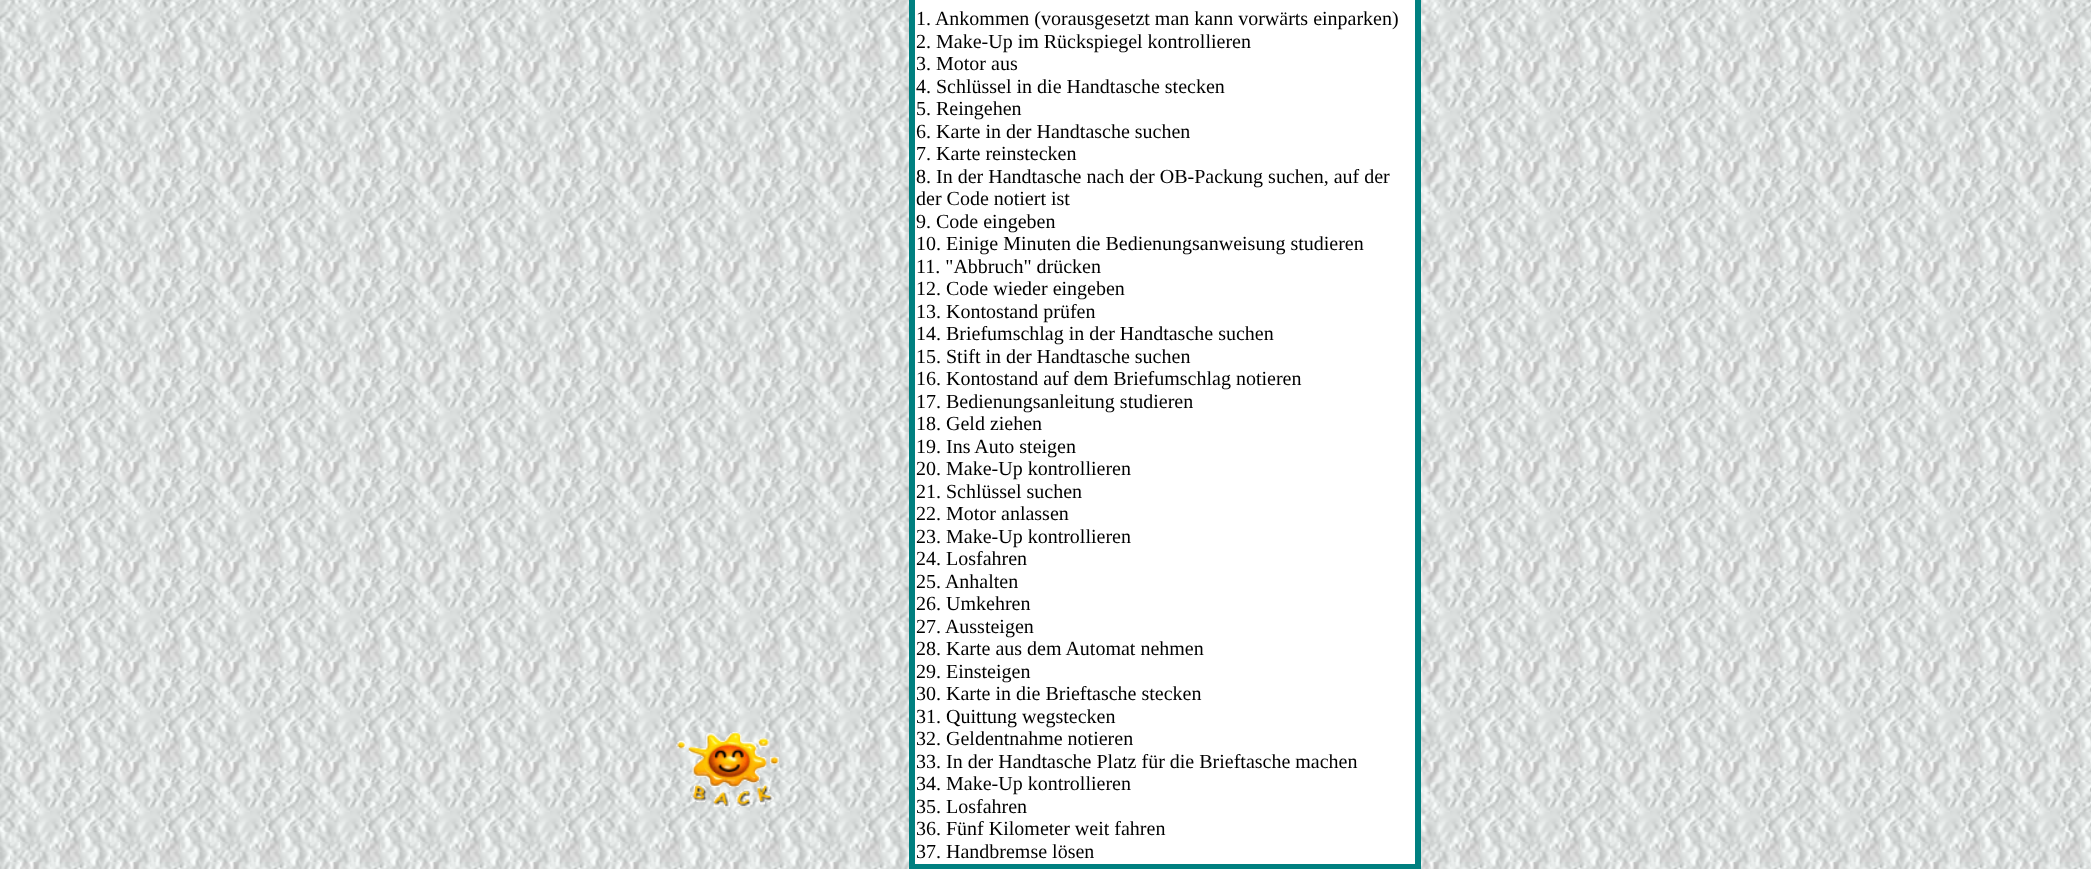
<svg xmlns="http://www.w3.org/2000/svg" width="2091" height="869">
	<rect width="100%" height="100%" fill="#FFFFFF" />
	<image x="0" y="0" width="2091" height="869" href="assets/img1.png" />
	<image x="676" y="732" width="103" height="76" href="assets/img2.png" />
	<rect x="911.5" y="-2.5" width="507" height="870" fill="none" stroke="#008080" stroke-width="5" />
	<rect x="914.5" y="-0.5" width="501" height="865" fill="#FFFFFF" stroke="#008080" />
	<g font-family="Liberation Serif" font-size="20" fill="#000000">
		<text x="916" y="25">1. Ankommen (vorausgesetzt man kann vorwärts einparken)</text>
		<text x="916" y="48">2. Make-Up im Rückspiegel kontrollieren</text>
		<text x="916" y="70">3. Motor aus</text>
		<text x="916" y="93">4. Schlüssel in die Handtasche stecken</text>
		<text x="916" y="115">5. Reingehen</text>
		<text x="916" y="138">6. Karte in der Handtasche suchen</text>
		<text x="916" y="160">7. Karte reinstecken</text>
		<text x="916" y="183">8. In der Handtasche nach der OB-Packung suchen, auf der</text>
		<text x="916" y="205">der Code notiert ist</text>
		<text x="916" y="228">9. Code eingeben</text>
		<text x="916" y="250">10. Einige Minuten die Bedienungsanweisung studieren</text>
		<text x="916" y="273">11. "Abbruch" drücken</text>
		<text x="916" y="295">12. Code wieder eingeben</text>
		<text x="916" y="318">13. Kontostand prüfen</text>
		<text x="916" y="340">14. Briefumschlag in der Handtasche suchen</text>
		<text x="916" y="363">15. Stift in der Handtasche suchen</text>
		<text x="916" y="385">16. Kontostand auf dem Briefumschlag notieren</text>
		<text x="916" y="408">17. Bedienungsanleitung studieren</text>
		<text x="916" y="430">18. Geld ziehen</text>
		<text x="916" y="453">19. Ins Auto steigen</text>
		<text x="916" y="475">20. Make-Up kontrollieren</text>
		<text x="916" y="498">21. Schlüssel suchen</text>
		<text x="916" y="520">22. Motor anlassen</text>
		<text x="916" y="543">23. Make-Up kontrollieren</text>
		<text x="916" y="565">24. Losfahren</text>
		<text x="916" y="588">25. Anhalten</text>
		<text x="916" y="610">26. Umkehren</text>
		<text x="916" y="633">27. Aussteigen</text>
		<text x="916" y="655">28. Karte aus dem Automat nehmen</text>
		<text x="916" y="678">29. Einsteigen</text>
		<text x="916" y="700">30. Karte in die Brieftasche stecken</text>
		<text x="916" y="723">31. Quittung wegstecken</text>
		<text x="916" y="745">32. Geldentnahme notieren</text>
		<text x="916" y="768">33. In der Handtasche Platz für die Brieftasche machen</text>
		<text x="916" y="790">34. Make-Up kontrollieren</text>
		<text x="916" y="813">35. Losfahren</text>
		<text x="916" y="835">36. Fünf Kilometer weit fahren</text>
		<text x="916" y="858">37. Handbremse lösen</text>
	</g>
</svg>
